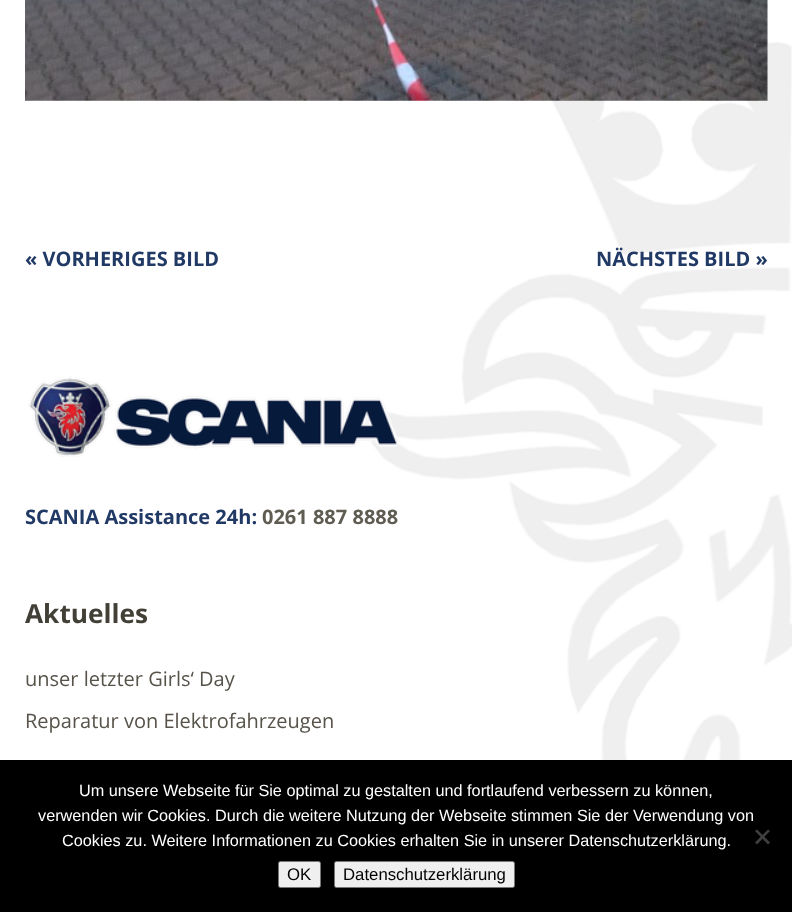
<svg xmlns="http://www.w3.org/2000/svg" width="792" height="912">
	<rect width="100%" height="100%" fill="#FFFFFF" />
	<image x="360" y="42" width="432" height="718" href="assets/img1.png" />
	<image x="25" y="0" width="743" height="101" href="assets/img2.png" />
	<g font-family="Open Sans" font-size="20" font-weight="700" fill="#213965">
		<text x="25" y="266">« VORHERIGES BILD</text>
		<text x="596" y="266">NÄCHSTES BILD »</text>
	</g>
	<image x="28" y="376" width="371" height="81" href="assets/img3.png" />
	<text x="25" y="524" font-family="Open Sans" font-size="20" font-weight="700" fill="#213965">SCANIA Assistance 24h:</text>
	<text x="262" y="524" font-family="Open Sans" font-size="20" font-weight="700" fill="#5F5C52">0261 887 8888</text>
	<text x="25" y="623" font-family="Open Sans" font-size="26.25" font-weight="700" fill="#423F37">Aktuelles</text>
	<g font-family="Open Sans" font-size="20" fill="#57534A">
		<text x="25" y="686">unser letzter Girls‘ Day</text>
		<text x="25" y="728">Reparatur von Elektrofahrzeugen</text>
	</g>
	<rect x="0" y="760" width="792" height="152" fill="#000000" />
	<g font-family="Liberation Sans" font-size="16.25" fill="#FFFFFF">
		<text x="79" y="796">Um unsere Webseite für Sie optimal zu gestalten und fortlaufend verbessern zu können,</text>
		<text x="38" y="821">verwenden wir Cookies. Durch die weitere Nutzung der Webseite stimmen Sie der Verwendung von</text>
		<text x="62" y="846">Cookies zu. Weitere Informationen zu Cookies erhalten Sie in unserer Datenschutzerklärung.</text>
	</g>
	<path d="M768 829.5L770 831L757 844.5L755 842.5Z" fill="#404040" />
	<path d="M755 831L757 829.5L770 842.5L768 844.5Z" fill="#404040" />
	<rect x="278.5" y="861.5" width="42" height="26" rx="2" fill="#EFEFEF" stroke="#767676" />
	<text x="287" y="880" font-family="Liberation Sans" font-size="16.75" fill="#000000">OK</text>
	<rect x="334.5" y="861.5" width="180" height="26" rx="2" fill="#EFEFEF" stroke="#767676" />
	<text x="343" y="880" font-family="Liberation Sans" font-size="16.75" fill="#000000">Datenschutzerklärung</text>
</svg>
